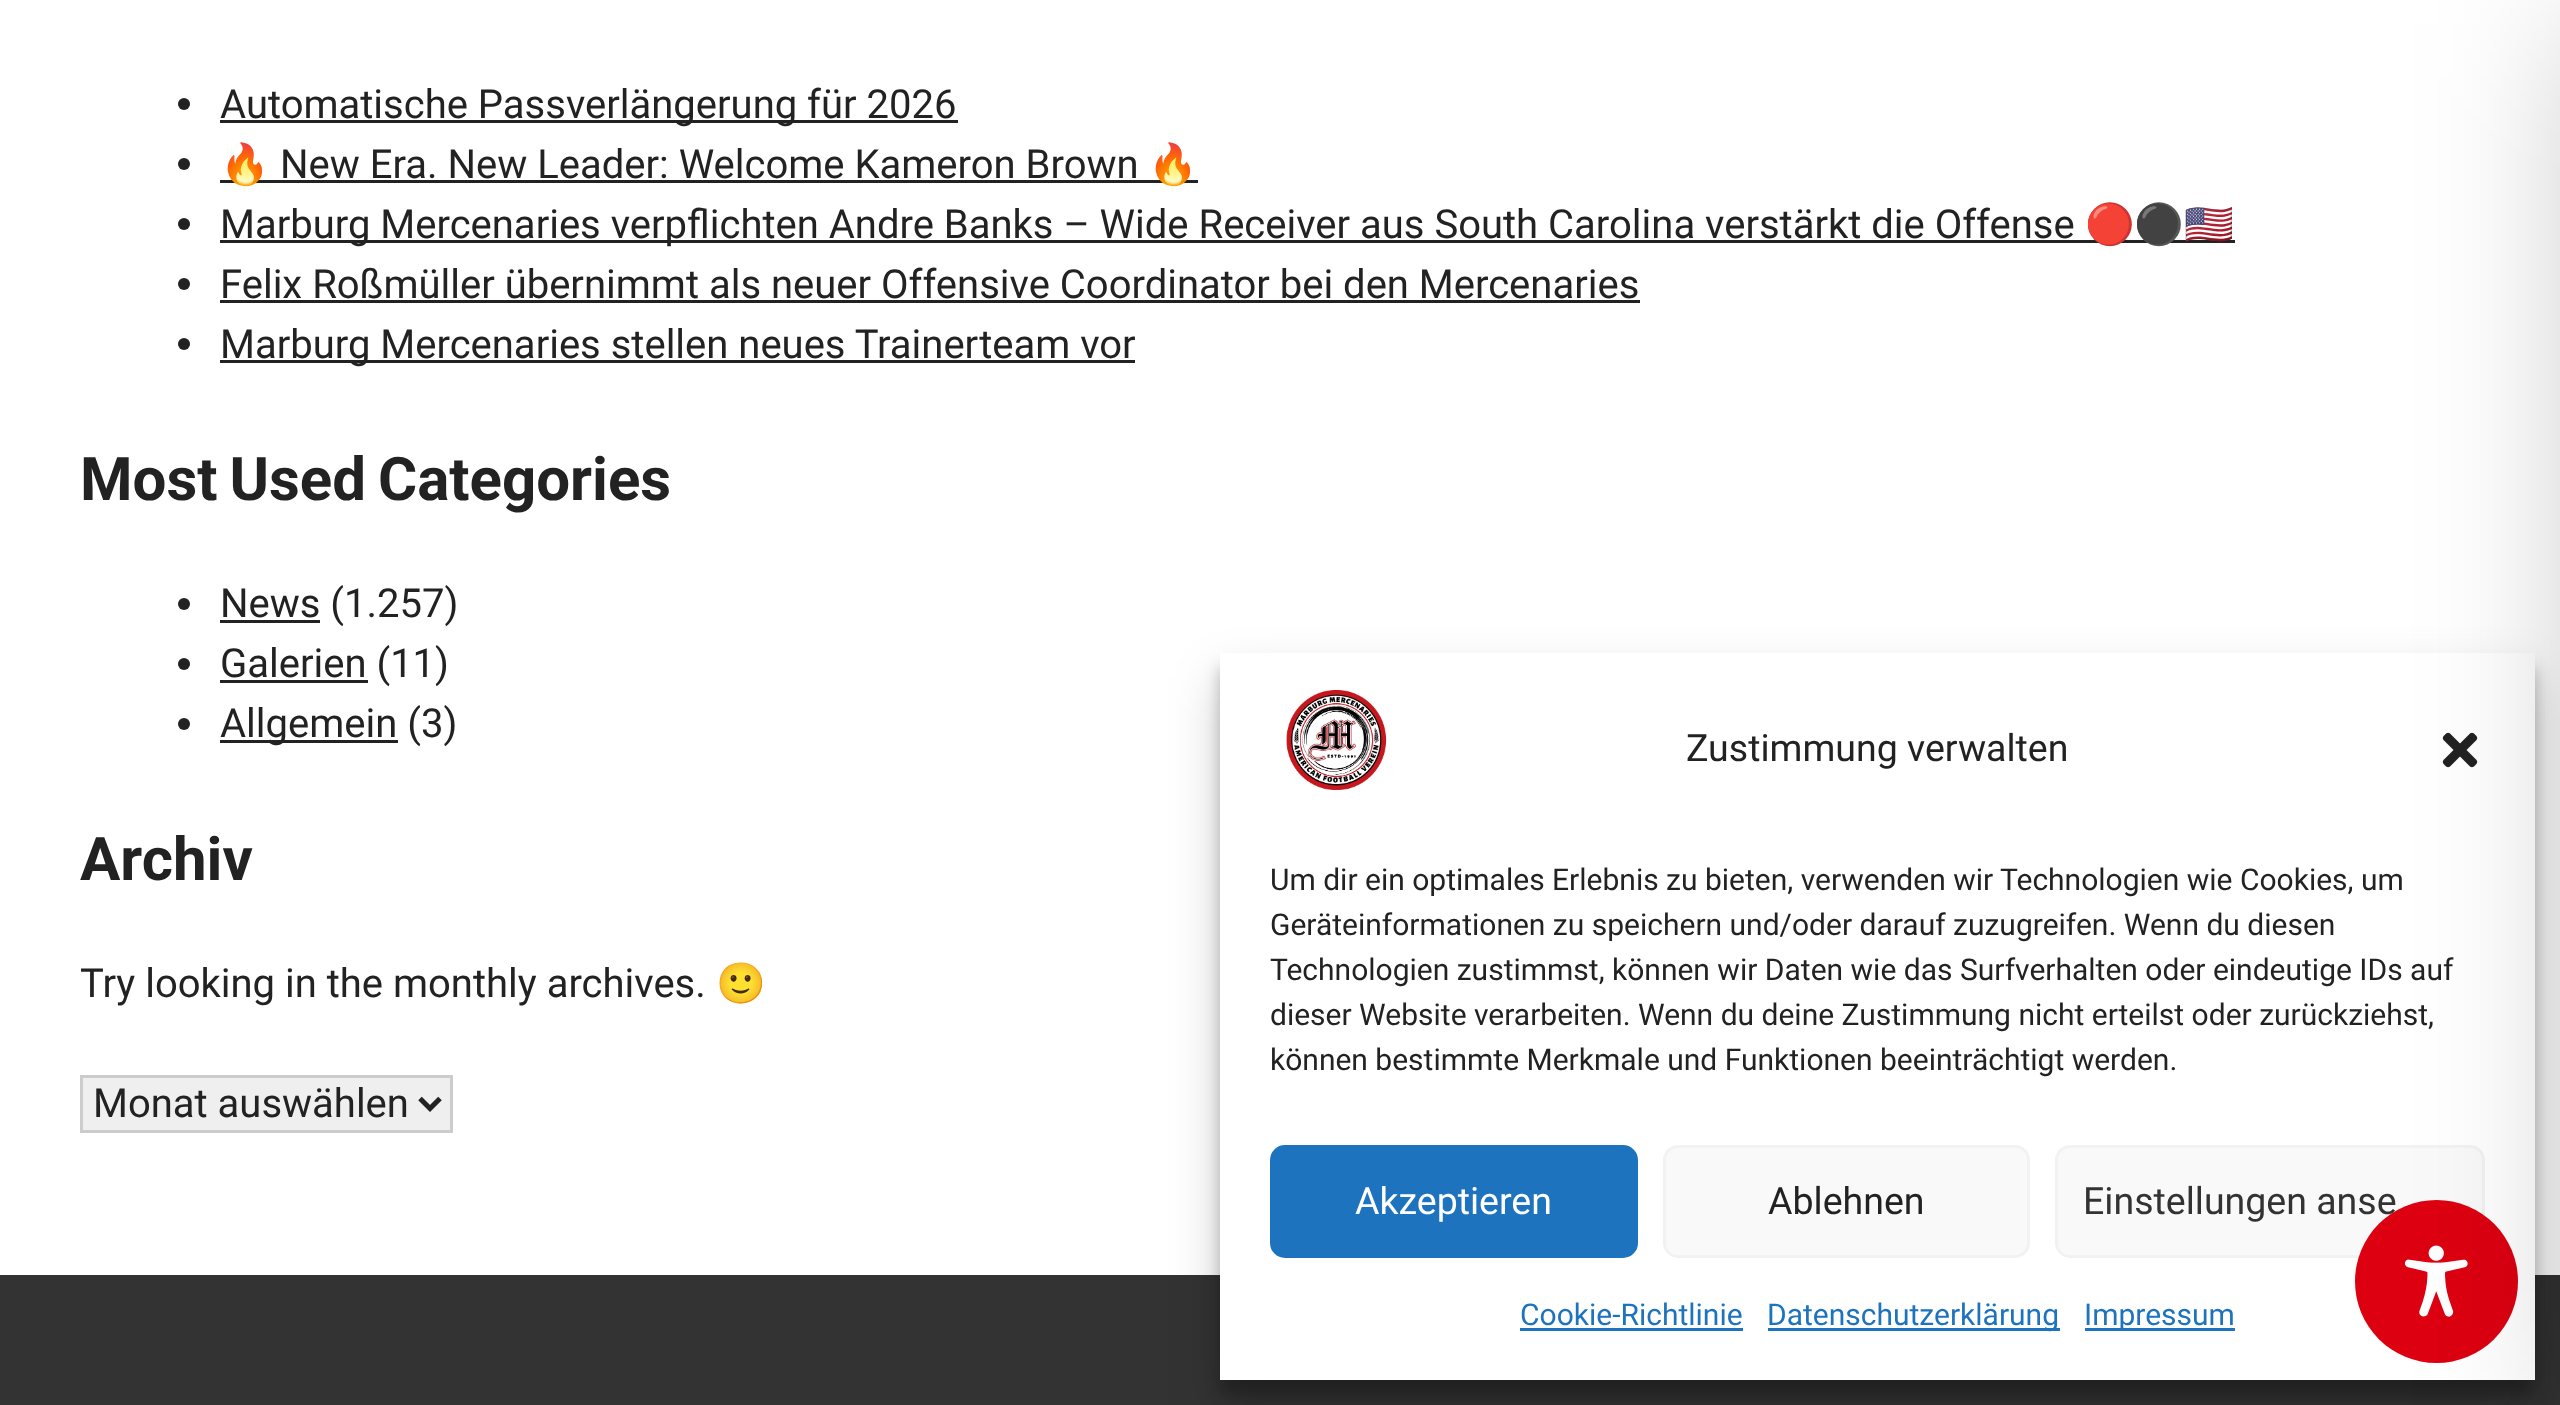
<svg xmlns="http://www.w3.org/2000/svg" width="2560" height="1405">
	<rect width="100%" height="100%" fill="#333333" />
	<rect x="0" y="0" width="2560" height="1275" fill="#FFFFFF" />
	<circle cx="184" cy="104" r="6" fill="#222222" />
	<rect x="220" y="120" width="738" height="3" fill="#222222" />
	<text x="220" y="118" font-family="Roboto" font-size="40" fill="#222222">Automatische Passverlängerung für 2026</text>
	<circle cx="184" cy="164" r="6" fill="#222222" />
	<rect x="220" y="180" width="978" height="3" fill="#222222" />
	<text x="220" y="178" font-family="Noto Color Emoji" font-size="40" fill="#222222">🔥</text>
	<text x="280" y="178" font-family="Roboto" font-size="40" fill="#222222">New Era. New Leader: Welcome Kameron Brown</text>
	<text x="1148" y="178" font-family="Noto Color Emoji" font-size="40" fill="#222222">🔥</text>
	<circle cx="184" cy="224" r="6" fill="#222222" />
	<rect x="220" y="240" width="2015" height="3" fill="#222222" />
	<text x="220" y="238" font-family="Roboto" font-size="40" fill="#222222">Marburg Mercenaries verpflichten Andre Banks – Wide Receiver aus South Carolina verstärkt die Offense</text>
	<text x="2085" y="238" font-family="Noto Color Emoji" font-size="40" fill="#222222">🔴⚫🇺🇸</text>
	<circle cx="184" cy="284" r="6" fill="#222222" />
	<text x="220" y="298" font-family="Roboto" font-size="40" fill="#222222">Felix Roßmüller übernimmt als neuer Offensive Coordinator bei den Mercenaries</text>
	<rect x="220" y="300" width="1420" height="3" fill="#222222" />
	<circle cx="184" cy="344" r="6" fill="#222222" />
	<rect x="220" y="360" width="915" height="3" fill="#222222" />
	<text x="220" y="358" font-family="Roboto" font-size="40" fill="#222222">Marburg Mercenaries stellen neues Trainerteam vor</text>
	<text x="80" y="500" word-spacing="-3" font-family="Roboto" font-size="60" font-weight="700" fill="#222222">Most Used Categories</text>
	<circle cx="184" cy="604" r="6" fill="#222222" />
	<rect x="220" y="620" width="100" height="3" fill="#222222" />
	<text x="220" y="617" font-family="Roboto" font-size="40" fill="#222222">News (1.257)</text>
	<circle cx="184" cy="664" r="6" fill="#222222" />
	<rect x="220" y="680" width="148" height="3" fill="#222222" />
	<text x="220" y="677" font-family="Roboto" font-size="40" fill="#222222">Galerien (11)</text>
	<circle cx="184" cy="724" r="6" fill="#222222" />
	<rect x="220" y="740" width="178" height="3" fill="#222222" />
	<text x="220" y="737" font-family="Roboto" font-size="40" fill="#222222">Allgemein (3)</text>
	<text x="80" y="880" font-family="Roboto" font-size="60" font-weight="700" fill="#222222">Archiv</text>
	<text x="80" y="997" font-family="Roboto" font-size="40" fill="#222222">Try looking in the monthly archives.</text>
	<text x="716" y="997" font-family="Noto Color Emoji" font-size="40" fill="#222222">🙂</text>
	<rect x="81.5" y="1076.5" width="370" height="55" fill="#EFEFEF" stroke="#CCCCCC" stroke-width="3" />
	<path d="M420 1098.5L430 1108.5L440 1098.5" fill="none" stroke="#222222" stroke-width="5" />
	<text x="93" y="1117" font-family="Roboto" font-size="40" fill="#222222">Monat auswählen</text>
	<rect x="1220" y="668" width="1315" height="727" fill="#000000" fill-opacity="0.23" filter="blur(7.5px)" />
	<rect x="1220" y="678" width="1315" height="727" fill="#000000" fill-opacity="0.19" filter="blur(25px)" />
	<rect x="1220" y="653" width="1315" height="727" fill="#FFFFFF" />
	<image x="2442" y="732" width="36" height="36" href="assets/img2.png" />
	<rect x="2056.5" y="1146.5" width="427" height="110" rx="13.5" fill="#F9F9F9" stroke="#F2F2F2" stroke-width="3" />
	<text x="2083" y="1214" font-family="Roboto" font-size="37.5" fill="#333333">Einstellungen anse</text>
	<circle cx="2436.5" cy="1281.5" r="81.5" fill="#DD0011" />
	<image x="2404" y="1245" width="64" height="72" href="assets/img3.png" />
	<rect x="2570" y="25" width="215" height="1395" fill="#000000" fill-opacity="0.2" filter="blur(75px)" />
	<image x="1286" y="690" width="101" height="100" href="assets/img1.png" />
	<text x="1686" y="761" font-family="Roboto" font-size="37.5" fill="#222222">Zustimmung verwalten</text>
	<g font-family="Roboto" font-size="30" fill="#222222">
		<text x="1270" y="890">Um dir ein optimales Erlebnis zu bieten, verwenden wir Technologien wie Cookies, um</text>
		<text x="1270" y="935">Geräteinformationen zu speichern und/oder darauf zuzugreifen. Wenn du diesen</text>
		<text x="1270" y="980">Technologien zustimmst, können wir Daten wie das Surfverhalten oder eindeutige IDs auf</text>
		<text x="1270" y="1025">dieser Website verarbeiten. Wenn du deine Zustimmung nicht erteilst oder zurückziehst,</text>
		<text x="1270" y="1070">können bestimmte Merkmale und Funktionen beeinträchtigt werden.</text>
	</g>
	<rect x="1271.5" y="1146.5" width="365" height="110" rx="13.5" fill="#1E73BE" stroke="#1E73BE" stroke-width="3" />
	<text x="1355" y="1214" font-family="Roboto" font-size="37.5" fill="#FFFFFF">Akzeptieren</text>
	<rect x="1664.5" y="1146.5" width="364" height="110" rx="13.5" fill="#F9F9F9" stroke="#F2F2F2" stroke-width="3" />
	<text x="1768" y="1214" font-family="Roboto" font-size="37.5" fill="#222222">Ablehnen</text>
	<text x="1520" y="1325" font-family="Roboto" font-size="30" fill="#1E73BE">Cookie-Richtlinie</text>
	<rect x="1520" y="1328" width="223" height="3" fill="#1E73BE" />
	<rect x="1768" y="1328" width="292" height="3" fill="#1E73BE" />
	<text x="1767" y="1325" font-family="Roboto" font-size="30" fill="#1E73BE">Datenschutzerklärung</text>
	<rect x="2085" y="1328" width="150" height="3" fill="#1E73BE" />
	<text x="2084" y="1325" font-family="Roboto" font-size="30" fill="#1E73BE">Impressum</text>
</svg>
